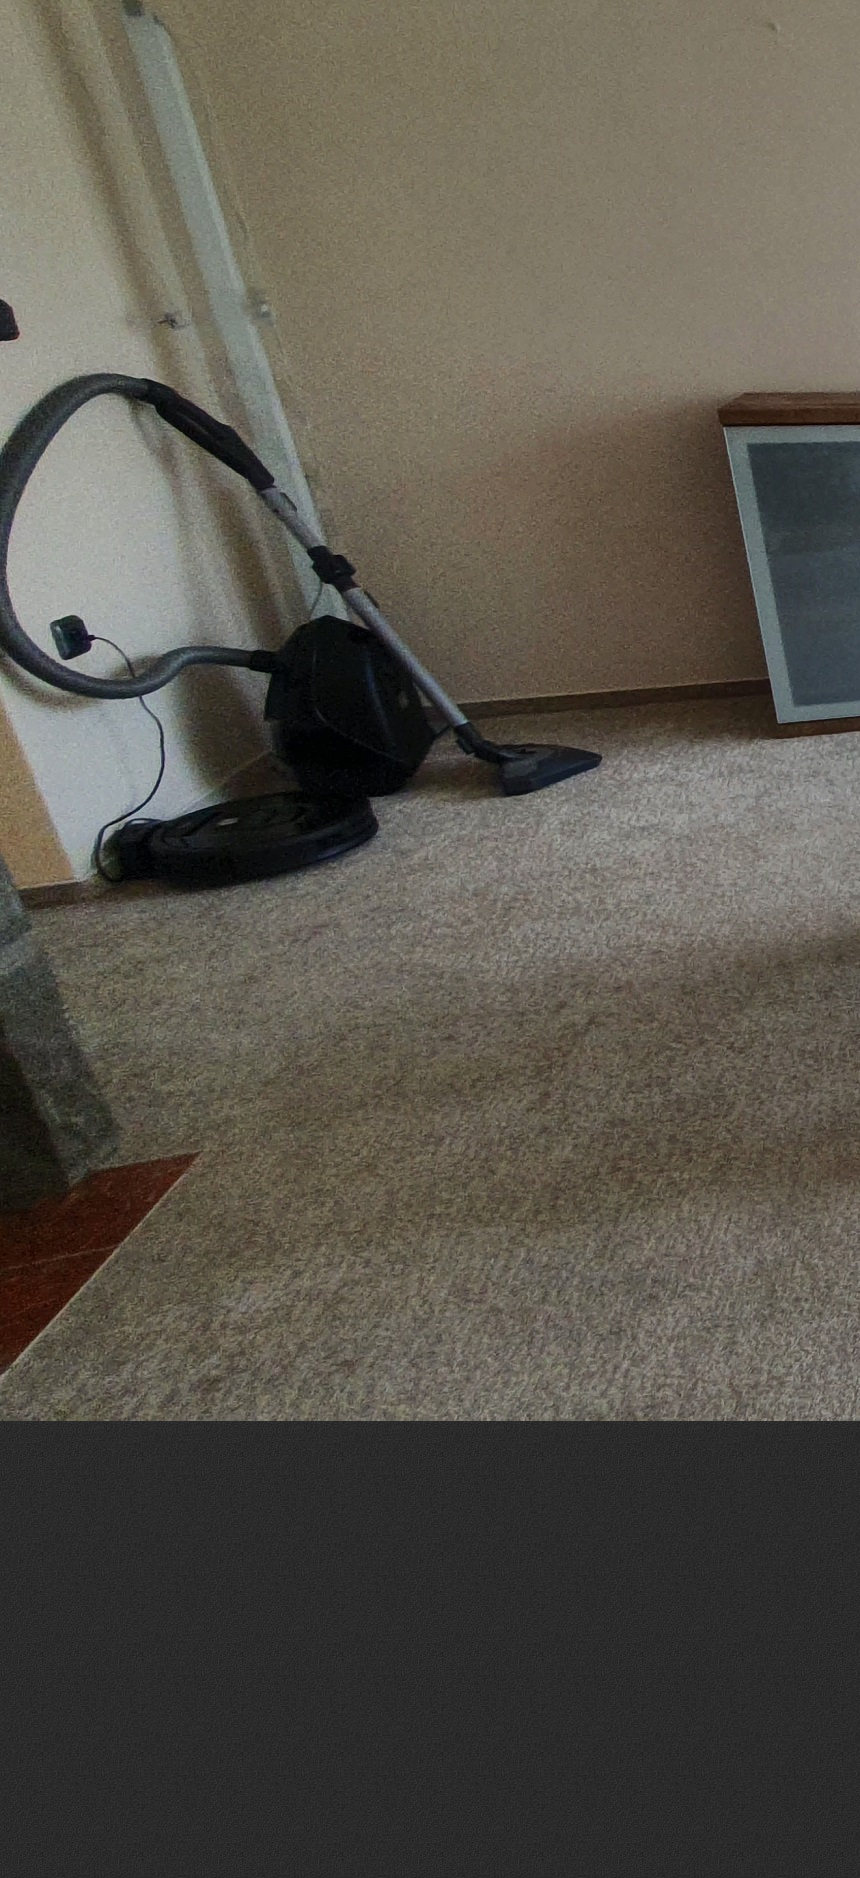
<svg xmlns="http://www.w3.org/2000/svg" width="860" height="1878">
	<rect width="100%" height="100%" fill="#FFFFFF" />
	<image x="0" y="1421" width="860" height="457" href="assets/img1.png" />
	<image x="0" y="0" width="860" height="1421" href="assets/img2.png" />
</svg>
